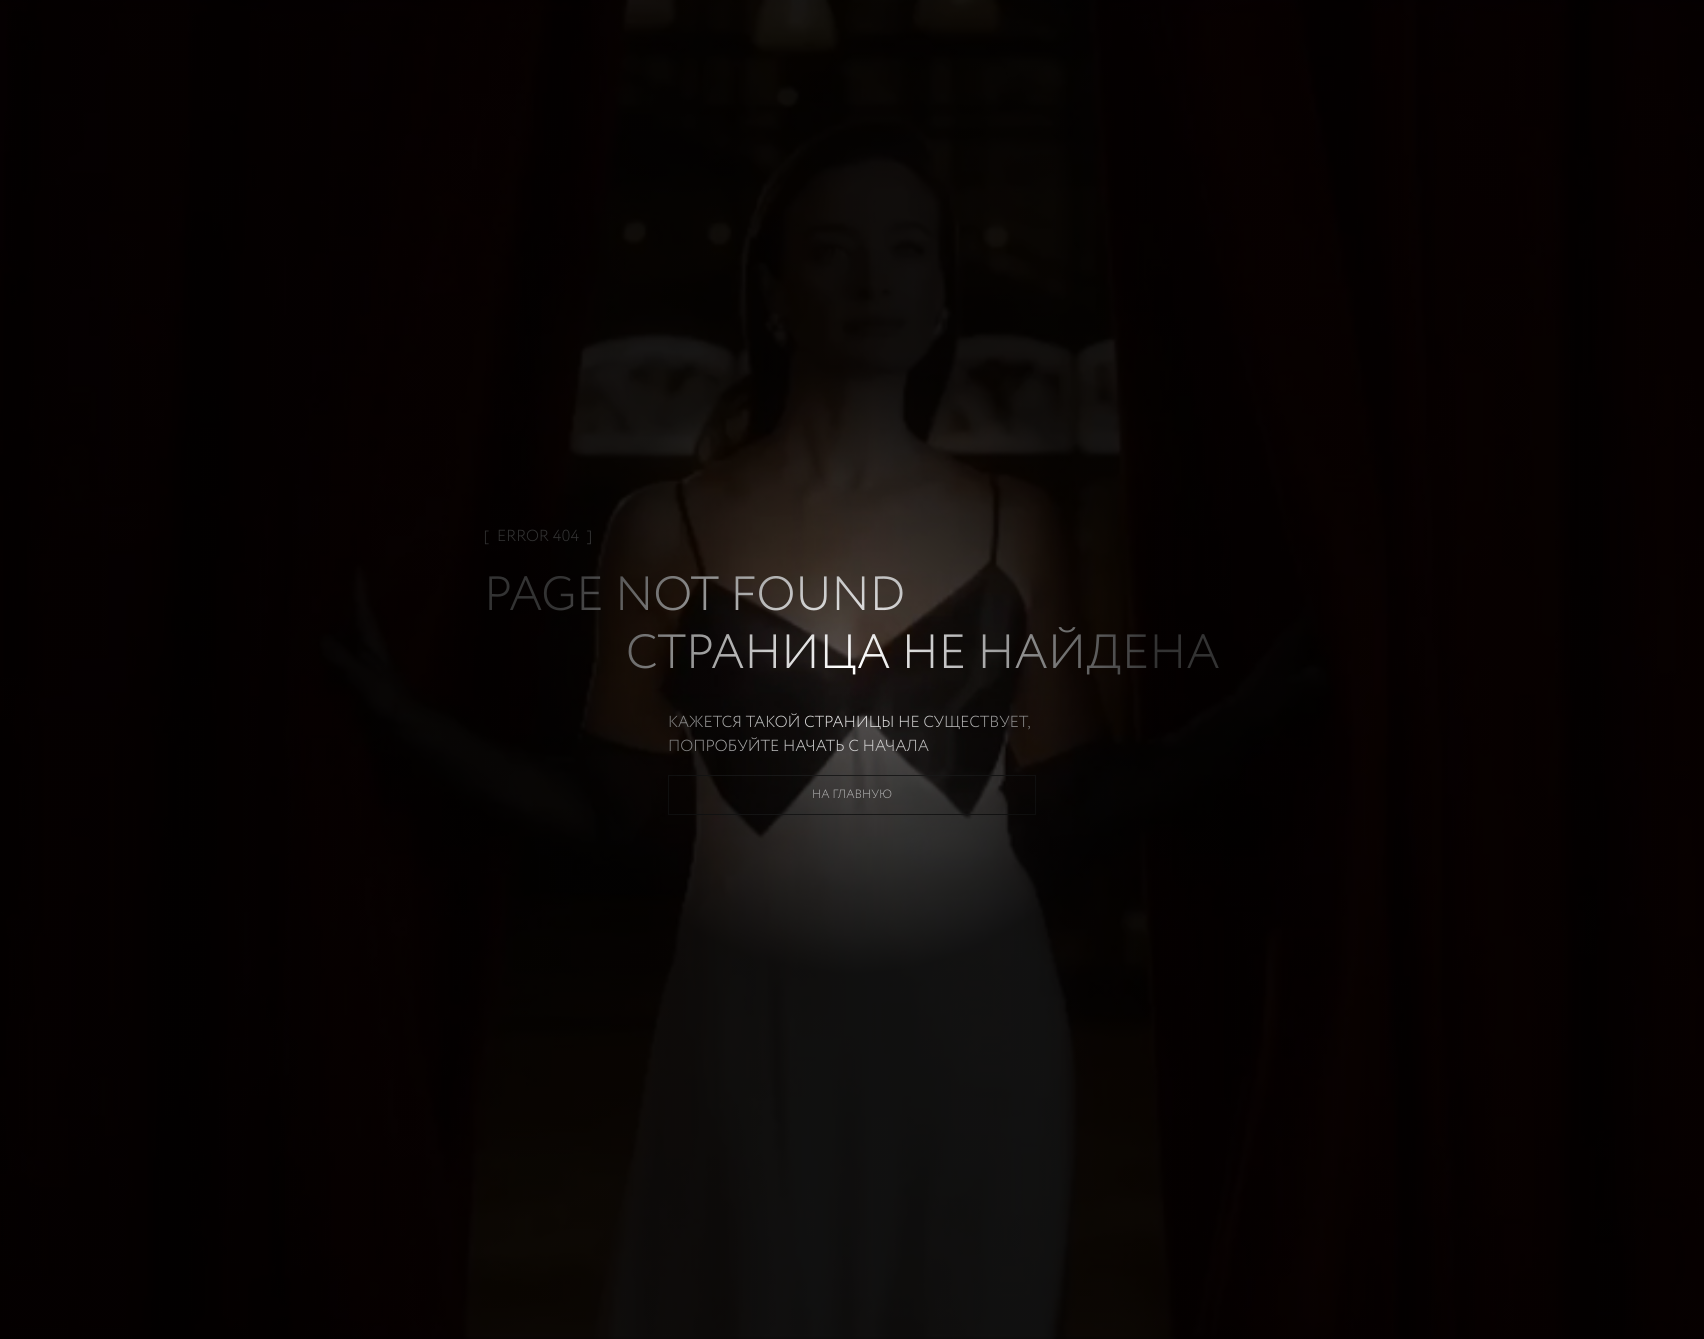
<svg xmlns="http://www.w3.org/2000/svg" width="1704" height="1339">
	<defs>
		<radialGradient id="g1" gradientUnits="userSpaceOnUse" cx="852" cy="670" r="1084"><stop offset="0.01" stop-color="#000000" stop-opacity="0" /><stop offset="0.28" stop-color="#000000" stop-opacity="0.8" /></radialGradient>
	</defs>
	<rect width="100%" height="100%" fill="#FFFFFF" />
	<image x="0" y="0" width="1704" height="1339" href="assets/img1.png" />
	<image x="484" y="530" width="5" height="15" href="assets/img2.png" />
	<image x="498" y="529" width="81" height="13" href="assets/img3.png" />
	<image x="587" y="530" width="4" height="15" href="assets/img4.png" />
	<image x="489" y="576" width="414" height="35" href="assets/img5.png" />
	<image x="628" y="627" width="591" height="48" href="assets/img6.png" />
	<image x="669" y="713" width="361" height="17" href="assets/img7.png" />
	<image x="669" y="737" width="260" height="15" href="assets/img8.png" />
	<rect x="668.5" y="775.5" width="367" height="39" fill="none" stroke="#232323" />
	<image x="813" y="789" width="79" height="10" href="assets/img9.png" />
	<rect x="0" y="0" width="1704" height="1339" fill="url(#g1)" />
</svg>
